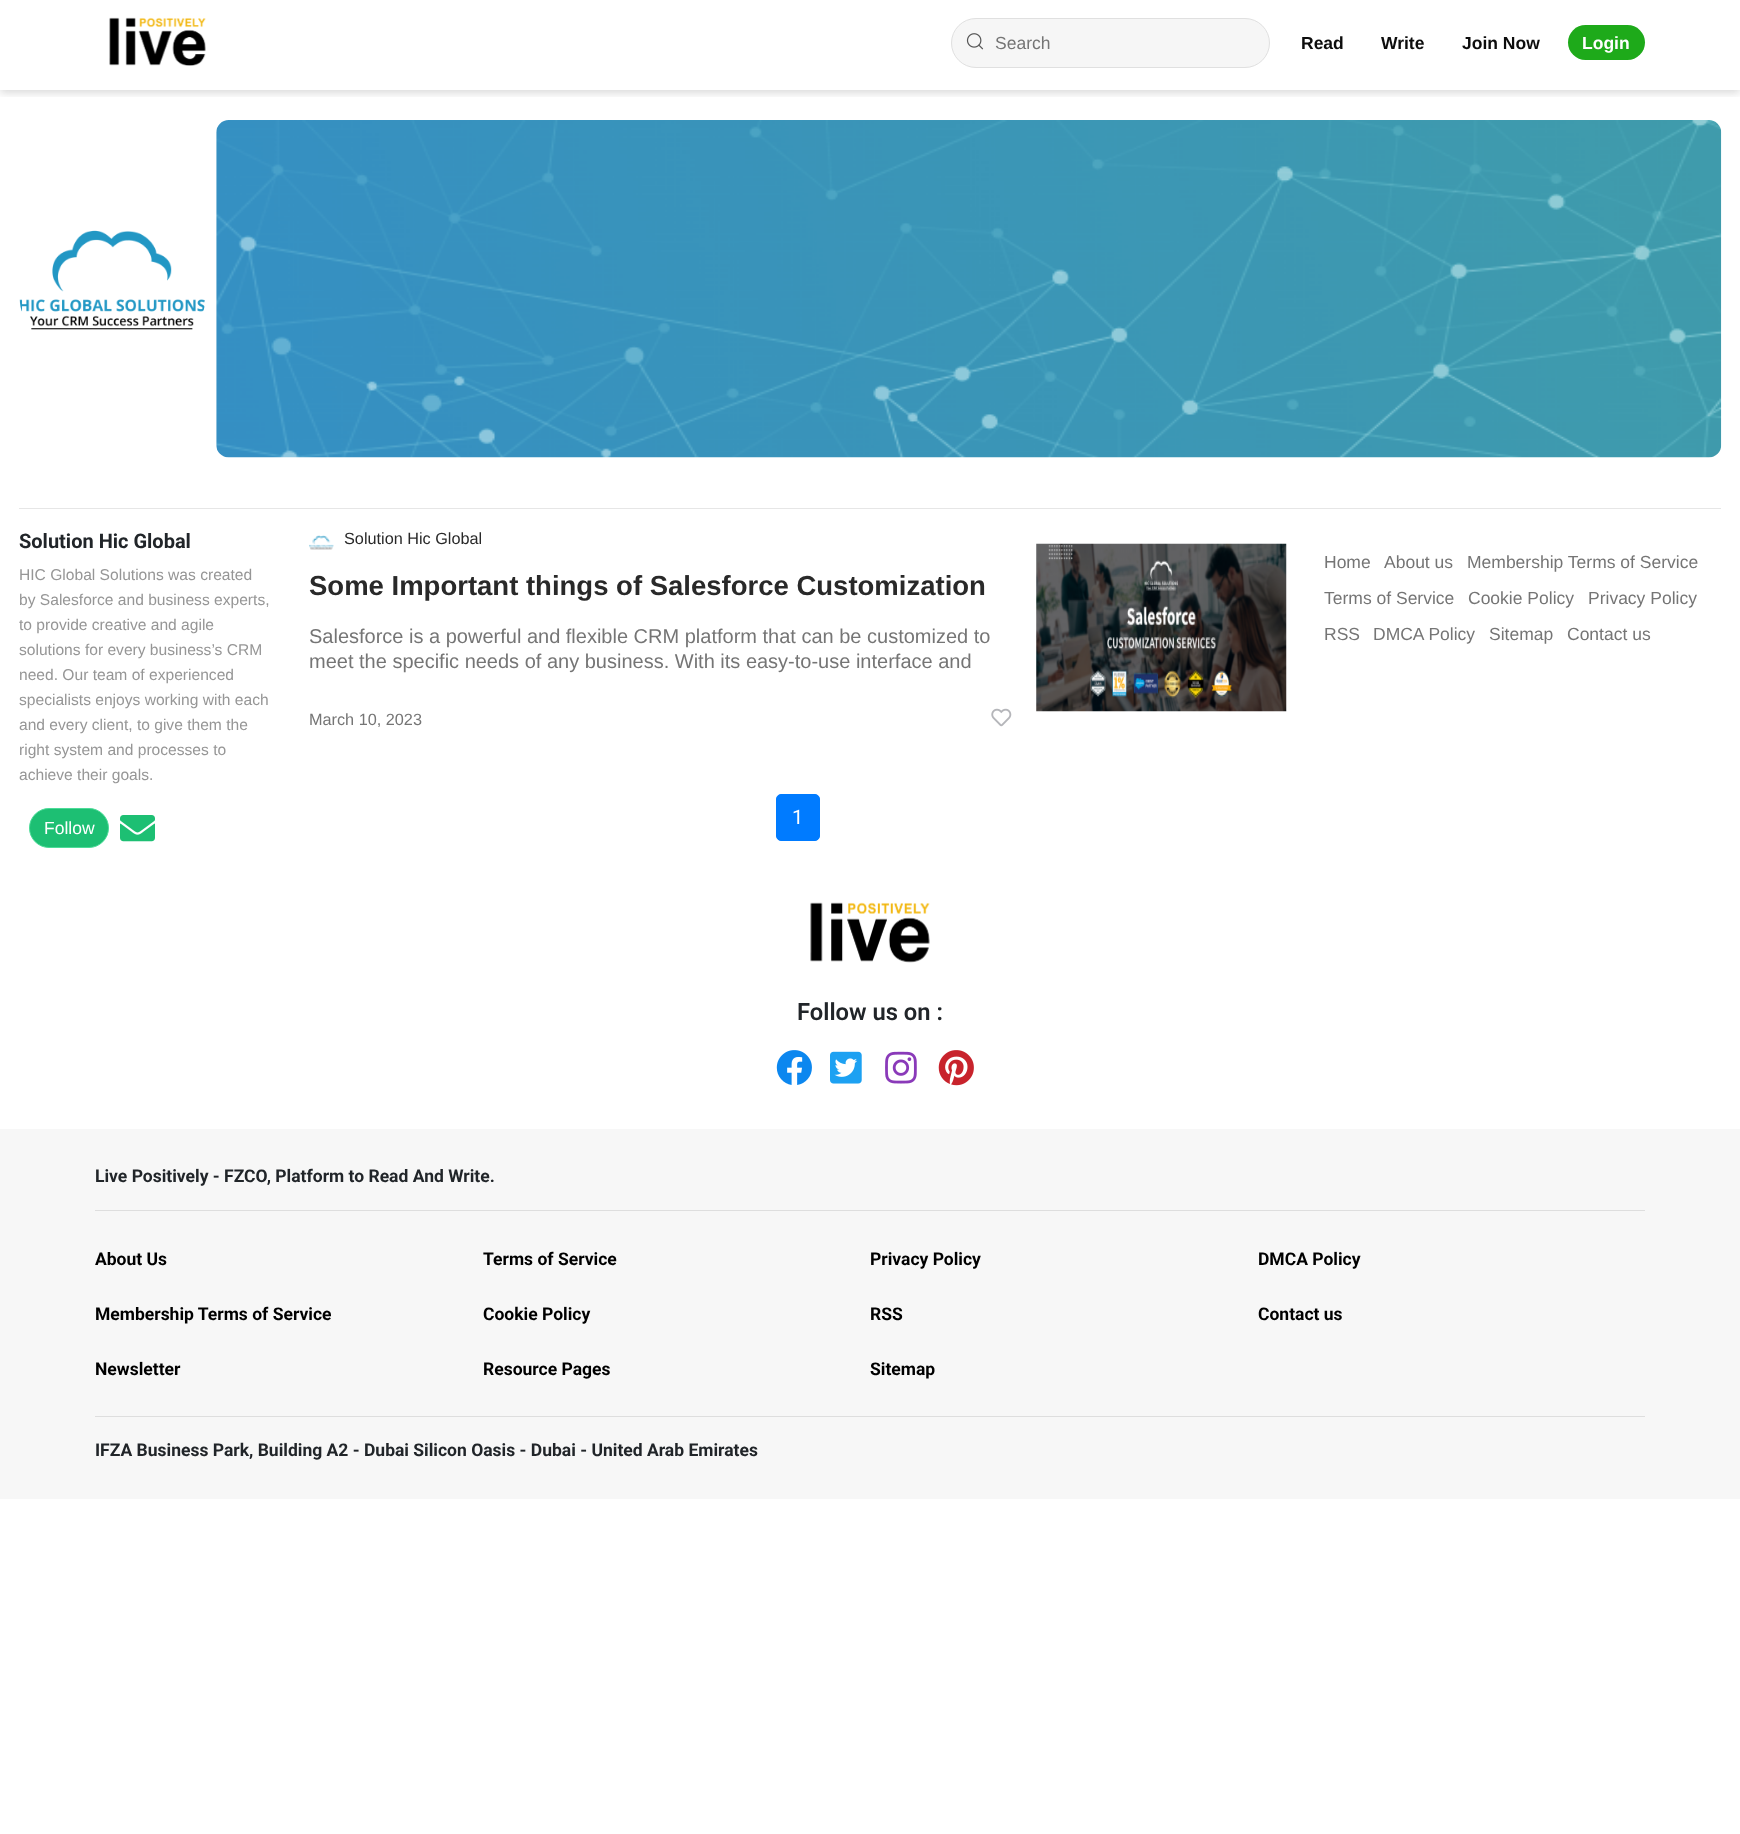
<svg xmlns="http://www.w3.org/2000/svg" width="1740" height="1834">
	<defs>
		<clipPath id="clip1"><rect x="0" y="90" width="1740" height="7" /></clipPath>
	</defs>
	<rect width="100%" height="100%" fill="#FFFFFF" />
	<g clip-path="url(#clip1)">
		<rect x="0" y="3" width="1740" height="90" fill="#000000" fill-opacity="0.15" filter="blur(4px)" />
	</g>
	<image x="109" y="17" width="97" height="49" href="assets/img1.png" />
	<rect x="951.5" y="18.5" width="318" height="49" rx="24.5" fill="#F6F6F6" stroke="#E0E0E0" />
	<image x="966" y="33" width="18" height="17" href="assets/img2.png" />
	<text x="995" y="49" font-family="Liberation Sans" font-size="17.5" fill="#757575">Search</text>
	<g font-family="Liberation Sans" font-size="17.5" font-weight="700" fill="#0D0D0D">
		<text x="1301" y="49">Read</text>
		<text x="1381" y="49">Write</text>
		<text x="1462" y="49">Join Now</text>
	</g>
	<rect x="1568" y="25" width="77" height="35" rx="17.5" fill="#1EAA1A" />
	<text x="1582" y="49" font-family="Liberation Sans" font-size="17.5" font-weight="700" fill="#FFFFFF">Login</text>
	<image x="19" y="230" width="186" height="100" href="assets/img3.png" />
	<image x="216" y="120" width="1506" height="338" href="assets/img4.png" />
	<rect x="19" y="508" width="1702" height="1" fill="#E6E6E6" />
	<text x="19" y="548" font-family="Roboto" font-size="20" font-weight="700" fill="#212529">Solution Hic Global</text>
	<g font-family="Liberation Sans" font-size="15.6" fill="#969696">
		<text x="19" y="580">HIC Global Solutions was created</text>
		<text x="19" y="605">by Salesforce and business experts,</text>
		<text x="19" y="630">to provide creative and agile</text>
		<text x="19" y="655">solutions for every business’s CRM</text>
		<text x="19" y="680">need. Our team of experienced</text>
		<text x="19" y="705">specialists enjoys working with each</text>
		<text x="19" y="730">and every client, to give them the</text>
		<text x="19" y="755">right system and processes to</text>
		<text x="19" y="780">achieve their goals.</text>
	</g>
	<rect x="29.5" y="808.5" width="79" height="39" rx="19.5" fill="#1DBF73" stroke="#4CDC98" />
	<text x="44" y="834" font-family="Liberation Sans" font-size="17.5" fill="#FFFFFF">Follow</text>
	<image x="120" y="815" width="35" height="27" href="assets/img5.png" />
	<image x="309" y="535" width="25" height="15" href="assets/img6.png" />
	<text x="344" y="544" font-family="Liberation Sans" font-size="16.25" fill="#292929">Solution Hic Global</text>
	<text x="309" y="595" font-family="Liberation Sans" font-size="27.5" font-weight="700" fill="#292929">Some Important things of Salesforce Customization</text>
	<g font-family="Liberation Sans" font-size="20" fill="#757575">
		<text x="309" y="643">Salesforce is a powerful and flexible CRM platform that can be customized to</text>
		<text x="309" y="668">meet the specific needs of any business. With its easy-to-use interface and</text>
	</g>
	<text x="309" y="725" font-family="Liberation Sans" font-size="16.25" fill="#757575">March 10, 2023</text>
	<image x="991" y="708" width="21" height="19" href="assets/img7.png" />
	<image x="1036" y="543" width="251" height="169" href="assets/img8.png" />
	<rect x="776.5" y="794.5" width="43" height="46" rx="4.5" fill="#007BFF" stroke="#007BFF" />
	<text x="792" y="824" font-family="Roboto" font-size="20" fill="#FFFFFF">1</text>
	<g font-family="Liberation Sans" font-size="17.5" fill="#757575">
		<text x="1324" y="568">Home</text>
		<text x="1384" y="568">About us</text>
		<text x="1467" y="568">Membership Terms of Service</text>
		<text x="1324" y="604">Terms of Service</text>
		<text x="1468" y="604">Cookie Policy</text>
		<text x="1588" y="604">Privacy Policy</text>
		<text x="1324" y="640">RSS</text>
		<text x="1373" y="640">DMCA Policy</text>
		<text x="1489" y="640">Sitemap</text>
		<text x="1567" y="640">Contact us</text>
	</g>
	<image x="810" y="902" width="120" height="61" href="assets/img9.png" />
	<text x="797" y="1020" font-family="Roboto" font-size="23.75" font-weight="600" fill="#212529">Follow us on :</text>
	<image x="776" y="1050" width="36" height="35" href="assets/img10.png" />
	<image x="830" y="1051" width="32" height="33" href="assets/img11.png" />
	<image x="885" y="1051" width="32" height="33" href="assets/img12.png" />
	<image x="938" y="1050" width="36" height="36" href="assets/img13.png" />
	<rect x="0" y="1129" width="1740" height="370" fill="#F7F7F7" />
	<text x="95" y="1182" font-family="Roboto" font-size="17.5" font-weight="700" fill="#212529">Live Positively - FZCO, Platform to Read And Write.</text>
	<rect x="95" y="1210" width="1550" height="1" fill="#DEDEDE" />
	<g font-family="Roboto" font-size="17.5" font-weight="700" fill="#000000">
		<text x="95" y="1265">About Us</text>
		<text x="95" y="1320">Membership Terms of Service</text>
		<text x="95" y="1375">Newsletter</text>
		<text x="483" y="1265">Terms of Service</text>
		<text x="483" y="1320">Cookie Policy</text>
		<text x="483" y="1375">Resource Pages</text>
		<text x="870" y="1265">Privacy Policy</text>
		<text x="870" y="1320">RSS</text>
		<text x="870" y="1375">Sitemap</text>
		<text x="1258" y="1265">DMCA Policy</text>
		<text x="1258" y="1320">Contact us</text>
	</g>
	<rect x="95" y="1416" width="1550" height="1" fill="#DEDEDE" />
	<text x="95" y="1456" font-family="Roboto" font-size="17.5" font-weight="700" fill="#212529">IFZA Business Park, Building A2 - Dubai Silicon Oasis - Dubai - United Arab Emirates</text>
</svg>
